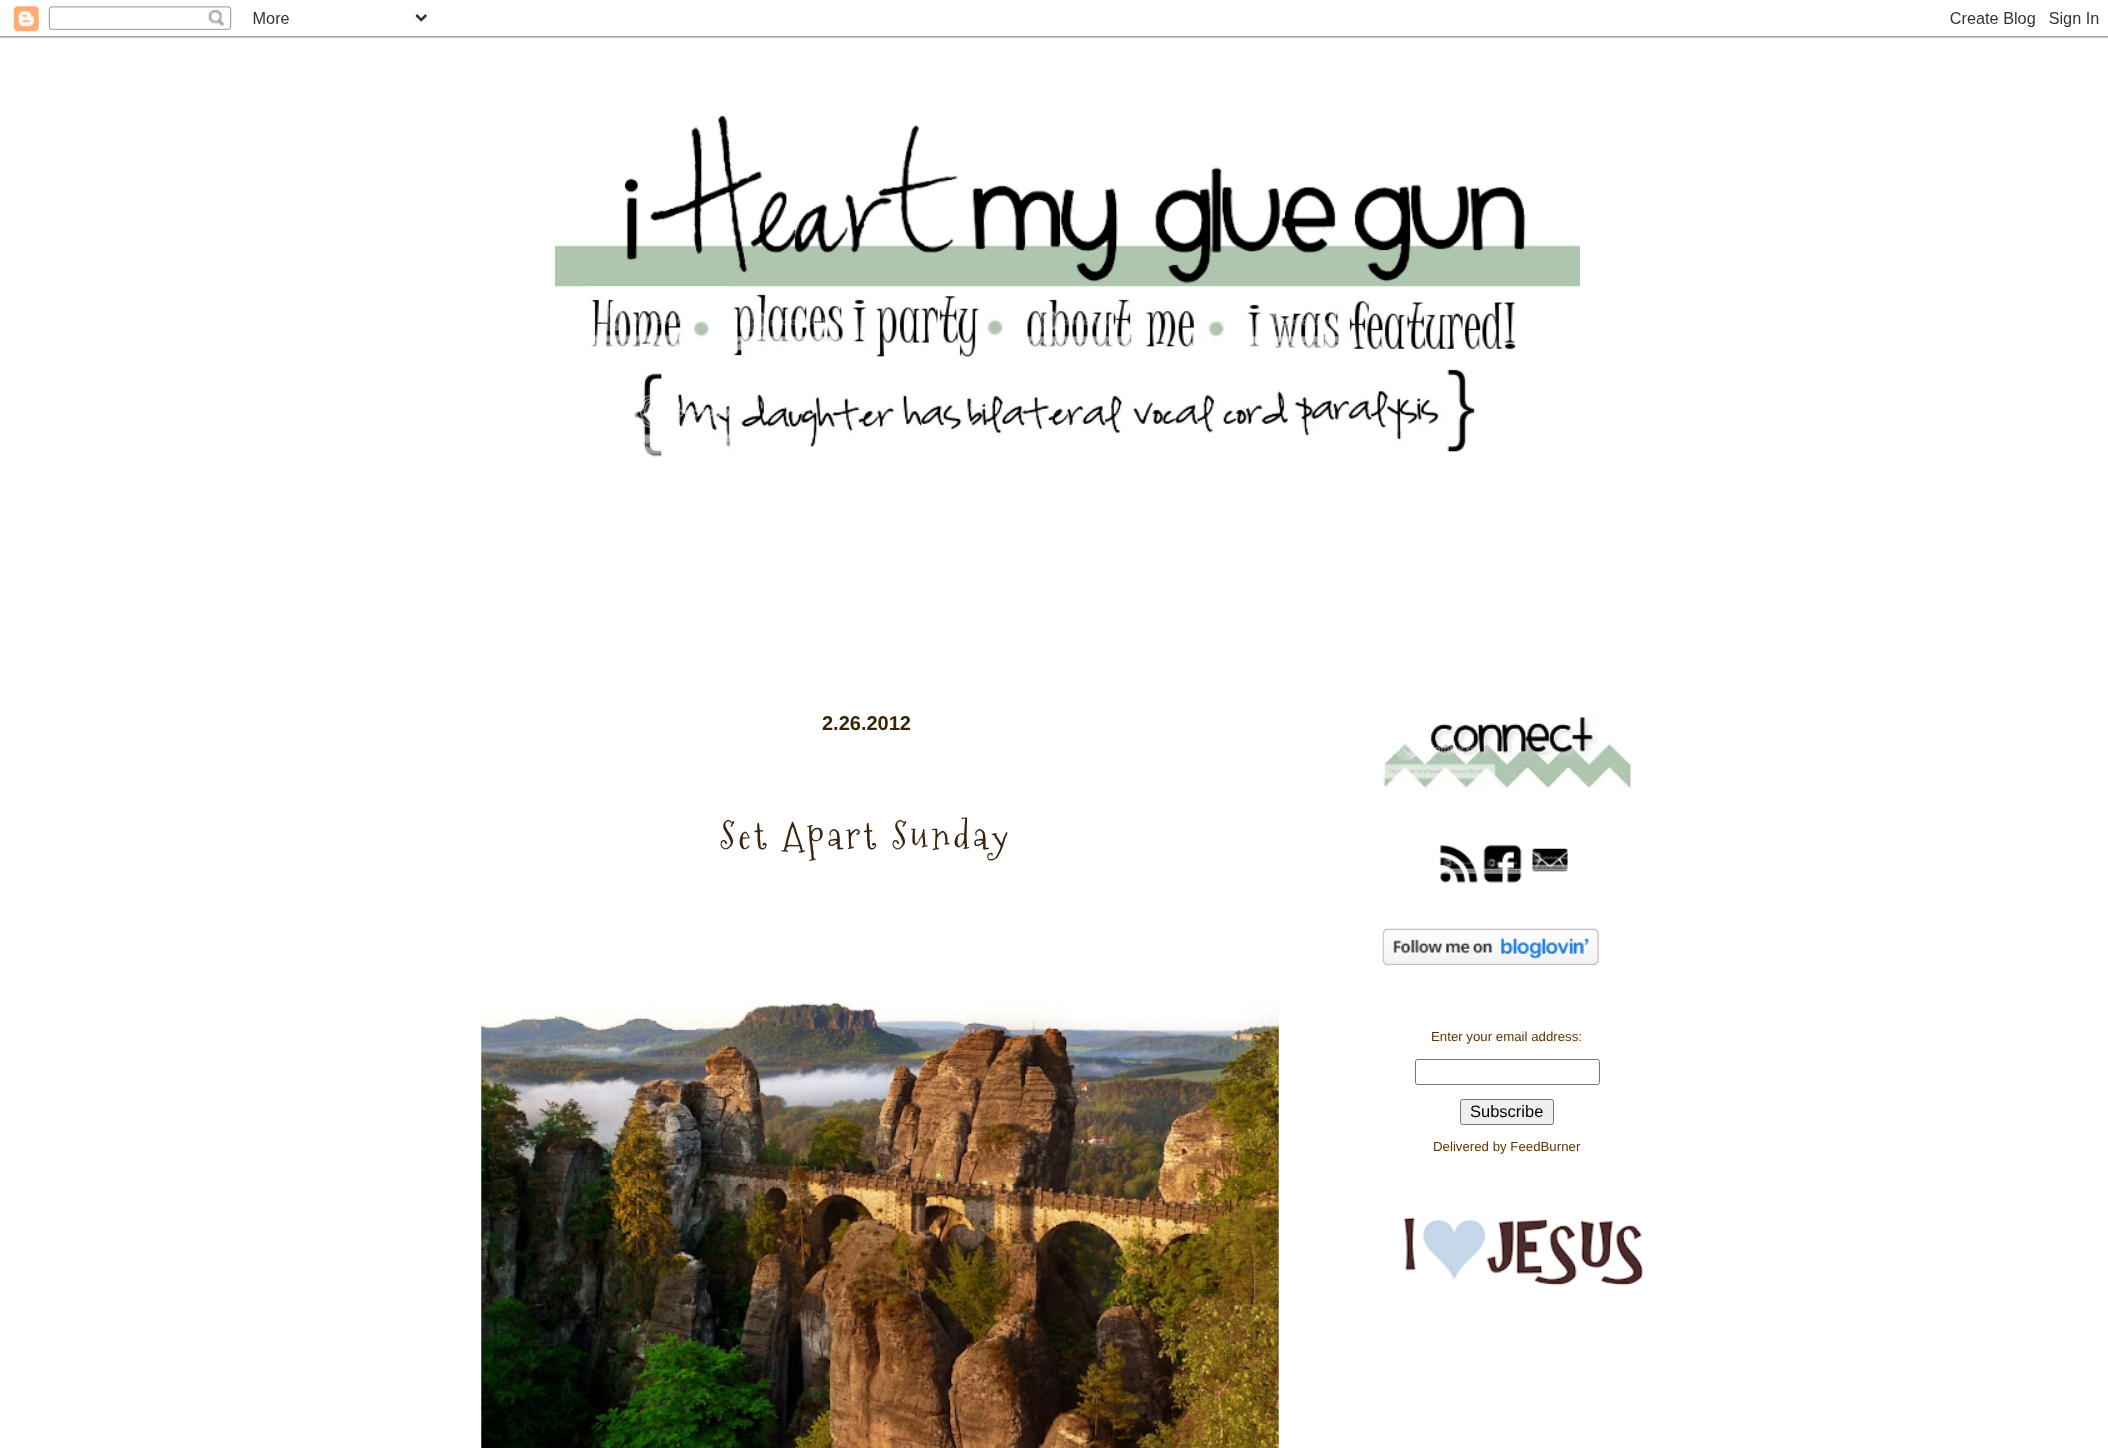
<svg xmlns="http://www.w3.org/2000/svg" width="2108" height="1448">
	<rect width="100%" height="100%" fill="#FFFFFF" />
	<image x="0" y="6" width="2108" height="32" href="assets/img1.png" />
	<image x="555" y="115" width="1025" height="172" href="assets/img2.png" />
	<image x="589" y="286" width="139" height="61" href="assets/img3.png" />
	<image x="731" y="294" width="275" height="65" href="assets/img4.png" />
	<image x="1024" y="299" width="200" height="50" href="assets/img5.png" />
	<image x="1247" y="299" width="269" height="50" href="assets/img6.png" />
	<image x="634" y="369" width="842" height="88" href="assets/img7.png" />
	<text x="822" y="730" font-family="Liberation Sans" font-size="20" font-weight="700" fill="#3B240B">2.26.2012</text>
	<text x="720" y="849" font-family="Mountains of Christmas" font-size="37.5" letter-spacing="3.75" fill="#3B240B">Set Apart Sunday</text>
	<image x="481" y="999" width="798" height="449" href="assets/img8.png" />
	<image x="1383" y="715" width="250" height="75" href="assets/img9.png" />
	<image x="1439" y="844" width="40" height="39" href="assets/img10.png" />
	<image x="1483" y="844" width="39" height="39" href="assets/img11.png" />
	<image x="1532" y="848" width="37" height="24" href="assets/img12.png" />
	<image x="1382" y="928" width="217" height="37" href="assets/img13.png" />
	<text x="1431" y="1041" font-family="Liberation Sans" font-size="13.25" fill="#663300">Enter your email address:</text>
	<rect x="1415.5" y="1059.5" width="184" height="25" rx="2" fill="none" stroke="#767676" />
	<rect x="1460.5" y="1099.5" width="93" height="25" rx="2" fill="#EFEFEF" stroke="#767676" />
	<text x="1470" y="1117" font-family="Liberation Sans" font-size="16.5" fill="#000000">Subscribe</text>
	<text x="1433" y="1151" font-family="Liberation Sans" font-size="13.25" fill="#663300">Delivered by FeedBurner</text>
	<image x="1403" y="1217" width="240" height="69" href="assets/img14.png" />
</svg>
